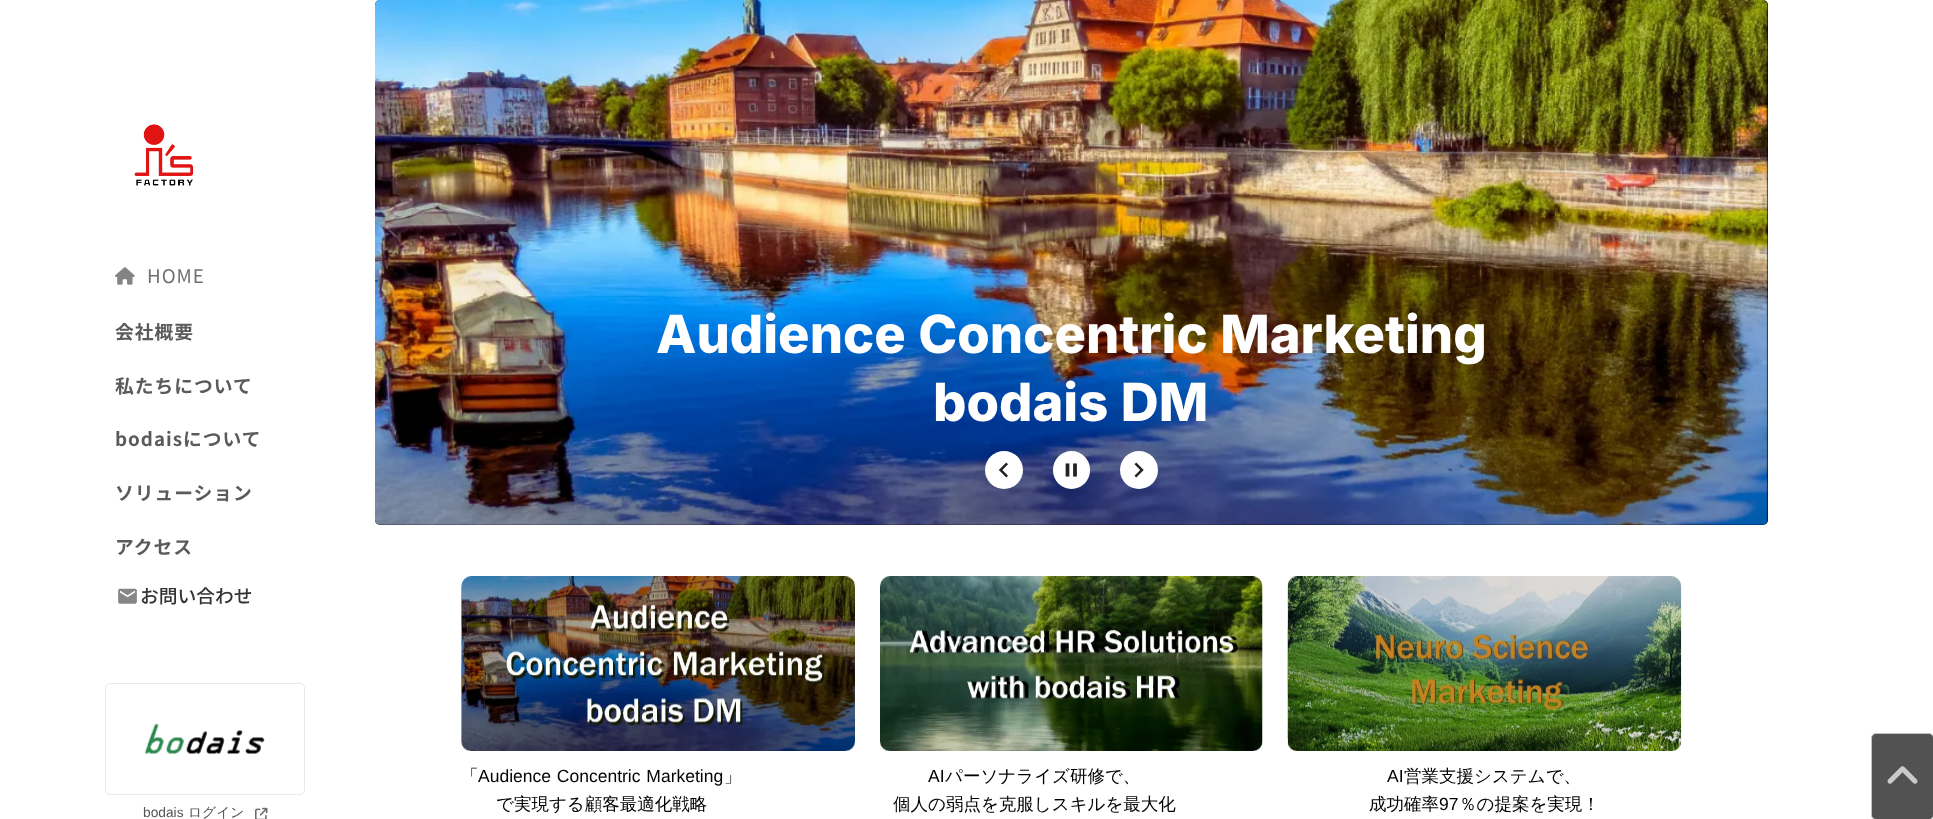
<svg xmlns="http://www.w3.org/2000/svg" width="1933" height="819">
	<rect width="100%" height="100%" fill="#FFFFFF" />
	<image x="134" y="124" width="60" height="62" href="assets/img1.png" />
	<image x="115" y="267" width="20" height="18" href="assets/img2.png" />
	<text x="147" y="283" font-family="Noto Sans JP" font-size="18.75" letter-spacing="1" fill="#6F6F6F">HOME</text>
	<g font-family="Noto Sans JP" font-size="18.75" font-weight="700" letter-spacing="1" fill="#5B5B5B">
		<text x="115" y="339">会社概要</text>
		<text x="115" y="393">私たちについて</text>
		<text x="115" y="446">bodaisについて</text>
		<text x="115" y="500">ソリューション</text>
		<text x="115" y="554">アクセス</text>
	</g>
	<image x="118" y="588" width="19" height="16" href="assets/img3.png" />
	<text x="140" y="603" font-family="Noto Sans JP" font-size="18.75" font-weight="500" fill="#333333">お問い合わせ</text>
	<rect x="105.5" y="683.5" width="199" height="111" rx="4.5" fill="none" stroke="#E8E8E8" />
	<image x="144" y="723" width="121" height="31" href="assets/img4.png" />
	<text x="143" y="817" font-family="Liberation Sans" font-size="13.75" fill="#555555">bodais</text>
	<text x="188" y="817" font-family="WenQuanYi Zen Hei" font-size="13.75" font-weight="500" fill="#555555">ログイン</text>
	<image x="255" y="807" width="13" height="12" href="assets/img5.png" />
	<rect x="375" y="0" width="1393" height="525" rx="5" fill="#000000" />
	<image x="375" y="0" width="1393" height="525" href="assets/img6.png" />
	<g font-family="Inter" font-size="52.5" font-weight="800" fill="#FFFFFF">
		<text x="656" y="353" word-spacing="1">Audience Concentric Marketing</text>
		<text x="933" y="421" word-spacing="1">bodais DM</text>
	</g>
	<circle cx="1004" cy="470" r="19" fill="#FFFFFF" />
	<image x="998" y="462" width="10" height="16" href="assets/img7.png" />
	<rect x="1053" y="451" width="37" height="38" rx="18.5" fill="#FFFFFF" />
	<image x="1065" y="463" width="12" height="14" href="assets/img8.png" />
	<circle cx="1139" cy="470" r="19" fill="#FFFFFF" />
	<image x="1134" y="462" width="10" height="16" href="assets/img9.png" />
	<image x="461" y="576" width="394" height="175" href="assets/img10.png" />
	<text x="461" y="782" font-family="WenQuanYi Zen Hei" font-size="17.5" font-weight="500" fill="#000000">「</text>
	<text x="478" y="782" word-spacing="1" font-family="Liberation Sans" font-size="17.5" fill="#000000">Audience Concentric Marketing</text>
	<g font-family="WenQuanYi Zen Hei" font-size="17.5" font-weight="500" fill="#000000">
		<text x="724" y="782">」</text>
		<text x="496" y="810">で実現する顧客最適化戦略</text>
	</g>
	<image x="880" y="576" width="383" height="175" href="assets/img11.png" />
	<text x="928" y="782" font-family="Liberation Sans" font-size="17.5" fill="#000000">AI</text>
	<g font-family="WenQuanYi Zen Hei" font-size="17.5" font-weight="500" fill="#000000">
		<text x="945" y="782">パーソナライズ研修で、</text>
		<text x="893" y="810">個人の弱点を克服しスキルを最大化</text>
	</g>
	<image x="1287" y="576" width="395" height="175" href="assets/img12.png" />
	<text x="1387" y="782" font-family="Liberation Sans" font-size="17.5" fill="#000000">AI</text>
	<g font-family="WenQuanYi Zen Hei" font-size="17.5" font-weight="500" fill="#000000">
		<text x="1404" y="782">営業支援システムで、</text>
		<text x="1369" y="810">成功確率</text>
	</g>
	<text x="1439" y="810" font-family="Liberation Sans" font-size="17.5" fill="#000000">97</text>
	<text x="1459" y="810" font-family="WenQuanYi Zen Hei" font-size="17.5" font-weight="500" fill="#000000">％の提案を実現！</text>
	<rect x="1871.5" y="733.5" width="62" height="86" rx="4.5" fill="#525252" stroke="#C2C2C2" />
	<image x="1887" y="766" width="31" height="18" href="assets/img13.png" />
</svg>
